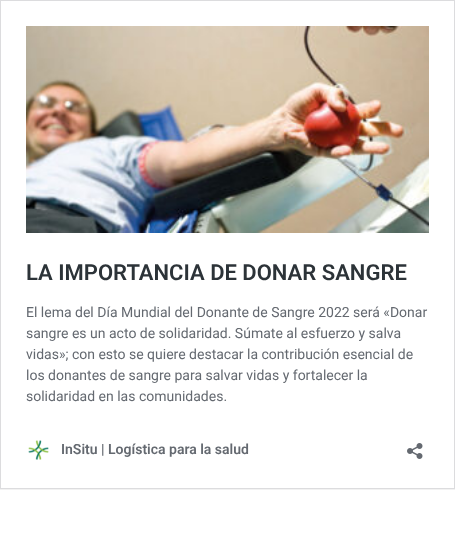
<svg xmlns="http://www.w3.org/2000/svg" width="455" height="536">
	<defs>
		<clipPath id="clip1"><rect x="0" y="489" width="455" height="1" /></clipPath>
	</defs>
	<rect width="100%" height="100%" fill="#FFFFFF" />
	<g clip-path="url(#clip1)">
		<rect x="0" y="1" width="455" height="489" fill="#000000" fill-opacity="0.05" filter="blur(0.5px)" />
	</g>
	<rect x="0.5" y="0.5" width="454" height="488" fill="none" stroke="#DCDCDE" />
	<image x="26" y="26" width="403" height="207" href="assets/img1.png" />
	<text x="26" y="280" font-family="Roboto" font-size="22" font-weight="600" fill="#2C3338">LA IMPORTANCIA DE DONAR SANGRE</text>
	<g font-family="Roboto" font-size="14" fill="#646970">
		<text x="26" y="317">El lema del Día Mundial del Donante de Sangre 2022 será «Donar</text>
		<text x="26" y="338">sangre es un acto de solidaridad. Súmate al esfuerzo y salva</text>
		<text x="26" y="359">vidas»; con esto se quiere destacar la contribución esencial de</text>
		<text x="26" y="380">los donantes de sangre para salvar vidas y fortalecer la</text>
		<text x="26" y="401">solidaridad en las comunidades.</text>
	</g>
	<image x="28" y="440" width="21" height="20" href="assets/img2.png" />
	<text x="61" y="454" font-family="Roboto" font-size="14" font-weight="600" fill="#646970">InSitu | Logística para la salud</text>
	<image x="407" y="443" width="16" height="16" href="assets/img3.png" />
</svg>
